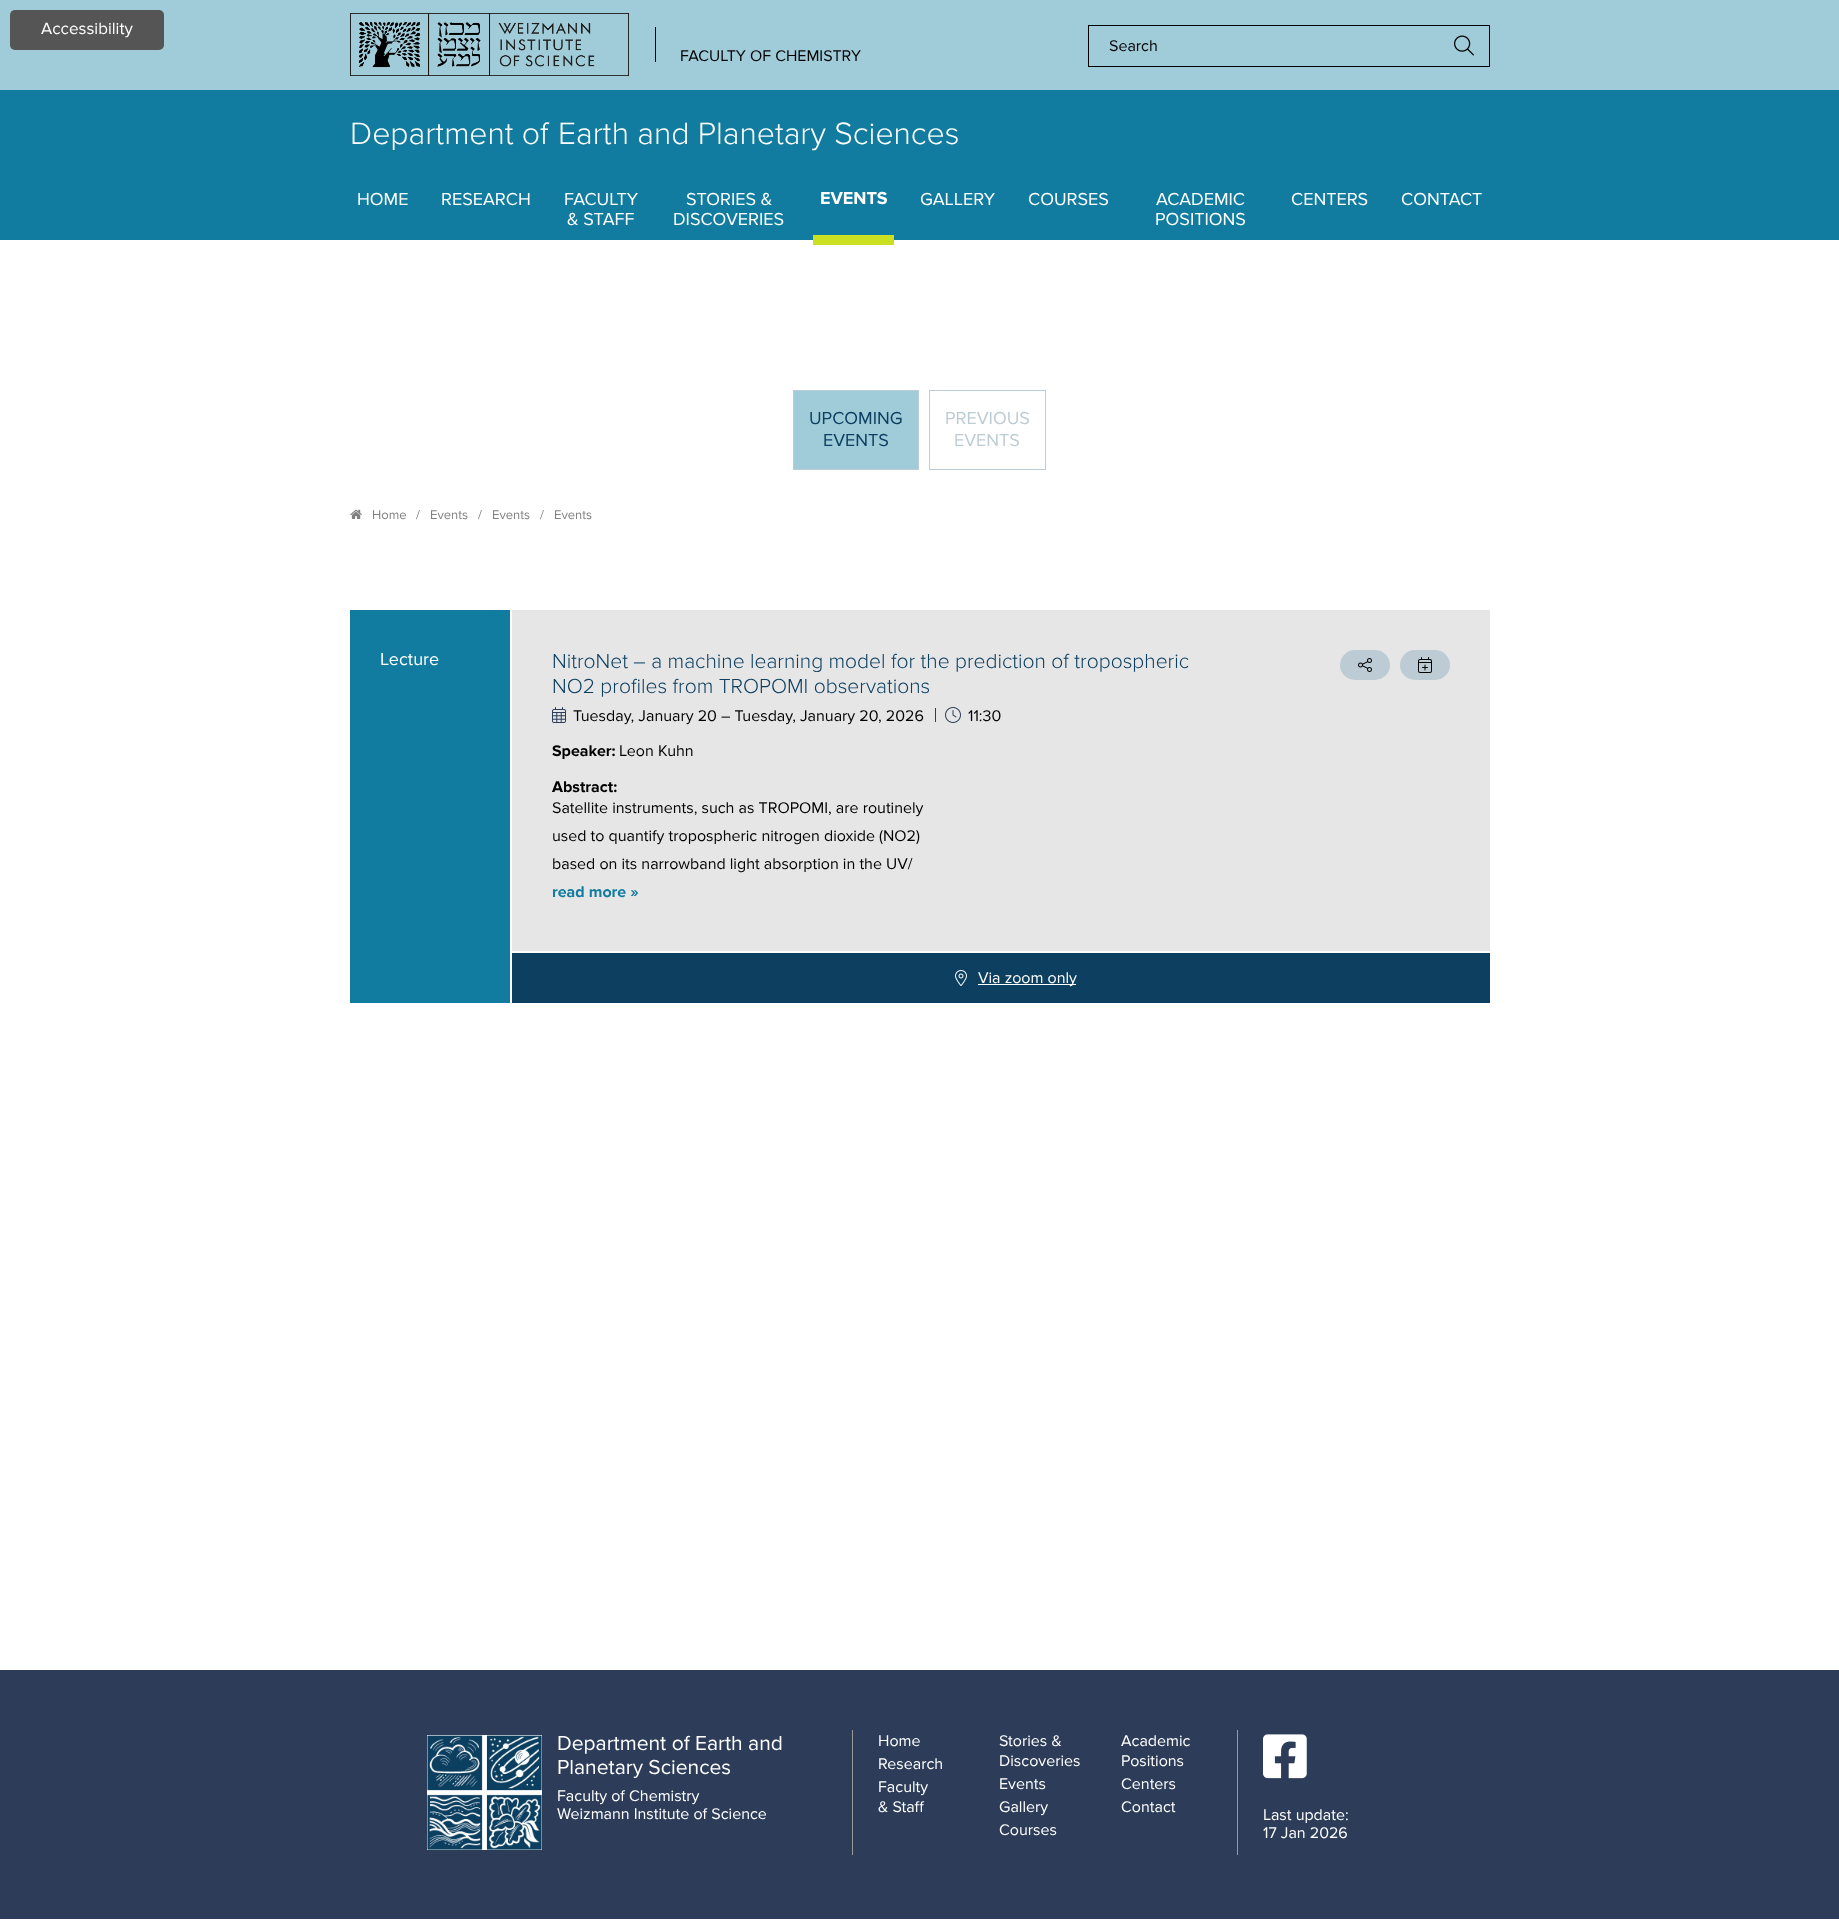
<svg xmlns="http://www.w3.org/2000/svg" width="1839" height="1920">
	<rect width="100%" height="100%" fill="#FFFFFF" />
	<rect x="0" y="0" width="1839" height="90" fill="#A0CBD9" />
	<rect x="10" y="10" width="154" height="40" rx="5" fill="#555555" />
	<text x="41" y="34" font-family="Proxima Nova" font-size="17" fill="#FFFFFF">Accessibility</text>
	<image x="350" y="13" width="279" height="63" href="assets/img1.png" />
	<rect x="1088.5" y="25.5" width="401" height="41" fill="none" stroke="#000000" />
	<text x="1109" y="51" font-family="Proxima Nova" font-size="16" fill="#000000">Search</text>
	<image x="1454" y="35" width="20" height="21" href="assets/img2.png" />
	<rect x="655" y="27" width="1" height="35" fill="#050606" />
	<text x="680" y="61" font-family="Proxima Nova" font-size="16" fill="#000000">FACULTY OF CHEMISTRY</text>
	<rect x="0" y="90" width="1839" height="150" fill="#117C9F" />
	<g font-family="Proxima Nova" font-size="32" font-weight="300" fill="#FFFFFF">
		<text x="350" y="144">Department of</text>
		<text x="558" y="144">Earth and Planetary Sciences</text>
	</g>
	<g font-family="Proxima Nova" font-size="18" fill="#FFFFFF">
		<text x="357" y="205">HOME</text>
		<text x="441" y="205">RESEARCH</text>
		<text x="564" y="205">FACULTY</text>
		<text x="567" y="225">&amp; STAFF</text>
		<text x="686" y="205">STORIES &amp;</text>
		<text x="673" y="225">DISCOVERIES</text>
	</g>
	<text x="820" y="204" font-family="Proxima Nova" font-size="18" font-weight="700" fill="#FFFFFF">EVENTS</text>
	<rect x="813" y="235" width="81" height="10" fill="#CBE021" />
	<g font-family="Proxima Nova" font-size="18" fill="#FFFFFF">
		<text x="920" y="205">GALLERY</text>
		<text x="1028" y="205">COURSES</text>
		<text x="1156" y="205">ACADEMIC</text>
		<text x="1155" y="225">POSITIONS</text>
		<text x="1291" y="205">CENTERS</text>
		<text x="1401" y="205">CONTACT</text>
	</g>
	<image x="350" y="509" width="12" height="10" href="assets/img3.png" />
	<g font-family="Proxima Nova" font-size="13" fill="#808080">
		<text x="372" y="519">Home</text>
		<text x="416" y="519">/</text>
		<text x="430" y="519">Events</text>
		<text x="478" y="519">/</text>
		<text x="492" y="519">Events</text>
		<text x="540" y="519">/</text>
		<text x="554" y="519">Events</text>
	</g>
	<rect x="793.5" y="390.5" width="125" height="79" fill="none" stroke="#BDCCD4" />
	<rect x="794" y="391" width="124" height="78" fill="#A0CBD9" />
	<g font-family="Proxima Nova" font-size="18" fill="#0C3F60">
		<text x="809" y="424">UPCOMING</text>
		<text x="823" y="446">EVENTS</text>
	</g>
	<rect x="929.5" y="390.5" width="116" height="79" fill="none" stroke="#BDCCD4" />
	<g font-family="Proxima Nova" font-size="18" fill="#BDCCD4">
		<text x="945" y="424">PREVIOUS</text>
		<text x="954" y="446">EVENTS</text>
	</g>
	<rect x="350" y="610" width="160" height="393" fill="#117C9F" />
	<text x="380" y="665" font-family="Proxima Nova" font-size="18" fill="#FFFFFF">Lecture</text>
	<rect x="512" y="610" width="978" height="341" fill="#E6E6E6" />
	<g font-family="Proxima Nova" font-size="21" font-weight="300" fill="#0C3F60">
		<text x="552" y="668">NitroNet – a machine learning model for the prediction of tropospheric</text>
		<text x="552" y="693">NO2 profiles from TROPOMI observations</text>
	</g>
	<image x="552" y="707" width="14" height="16" href="assets/img4.png" />
	<text x="573" y="721" font-family="Proxima Nova" font-size="16" fill="#000000">Tuesday, January 20 – Tuesday, January 20, 2026</text>
	<rect x="935" y="708" width="1" height="14" fill="#2C3C59" />
	<image x="945" y="707" width="16" height="16" href="assets/img5.png" />
	<text x="968" y="721" font-family="Proxima Nova" font-size="16" fill="#000000">11:30</text>
	<text x="552" y="756" font-family="Proxima Nova" font-size="16" font-weight="700" fill="#000000">Speaker:</text>
	<text x="619" y="756" font-family="Proxima Nova" font-size="16" fill="#000000">Leon Kuhn</text>
	<text x="552" y="792" font-family="Proxima Nova" font-size="16" font-weight="700" fill="#000000">Abstract:</text>
	<g font-family="Proxima Nova" font-size="16" fill="#000000">
		<text x="552" y="813">Satellite instruments, such as TROPOMI, are routinely</text>
		<text x="552" y="841">used to quantify tropospheric nitrogen dioxide (NO2)</text>
		<text x="552" y="869">based on its narrowband light absorption in the UV/</text>
	</g>
	<text x="552" y="897" font-family="Proxima Nova" font-size="16" font-weight="700" fill="#117C9F">read more »</text>
	<rect x="1340" y="650" width="50" height="30" rx="15" fill="#BDCCD4" />
	<image x="1358" y="658" width="14" height="14" href="assets/img6.png" />
	<rect x="1400" y="650" width="50" height="30" rx="15" fill="#BDCCD4" />
	<image x="1418" y="657" width="14" height="16" href="assets/img7.png" />
	<rect x="512" y="953" width="978" height="50" fill="#0C3F60" />
	<image x="955" y="970" width="12" height="16" href="assets/img8.png" />
	<rect x="978" y="984" width="98" height="1" fill="#FFFFFF" />
	<text x="978" y="983" font-family="Proxima Nova" font-size="16" fill="#FFFFFF">Via zoom only</text>
	<rect x="0" y="1670" width="1839" height="249" fill="#2C3C59" />
	<image x="427" y="1735" width="115" height="115" href="assets/img9.png" />
	<g font-family="Proxima Nova" font-size="21" fill="#FFFFFF">
		<text x="557" y="1750">Department of Earth and</text>
		<text x="557" y="1774">Planetary Sciences</text>
	</g>
	<g font-family="Proxima Nova" font-size="16" fill="#FFFFFF">
		<text x="557" y="1801">Faculty of Chemistry</text>
		<text x="557" y="1819">Weizmann Institute of Science</text>
	</g>
	<rect x="852" y="1730" width="1" height="125" fill="#999999" />
	<g font-family="Proxima Nova" font-size="16" fill="#FFFFFF">
		<text x="878" y="1746">Home</text>
		<text x="999" y="1746">Stories &amp;</text>
		<text x="999" y="1766">Discoveries</text>
		<text x="1121" y="1746">Academic</text>
		<text x="1121" y="1766">Positions</text>
		<text x="878" y="1769">Research</text>
		<text x="878" y="1792">Faculty</text>
		<text x="878" y="1812">&amp; Staff</text>
		<text x="999" y="1789">Events</text>
		<text x="1121" y="1789">Centers</text>
		<text x="999" y="1812">Gallery</text>
		<text x="1121" y="1812">Contact</text>
		<text x="999" y="1835">Courses</text>
	</g>
	<rect x="1237" y="1730" width="1" height="125" fill="#999999" />
	<image x="1263" y="1734" width="44" height="45" href="assets/img10.png" />
	<g font-family="Proxima Nova" font-size="16" fill="#FFFFFF">
		<text x="1263" y="1820">Last update:</text>
		<text x="1263" y="1838">17 Jan 2026</text>
	</g>
</svg>
